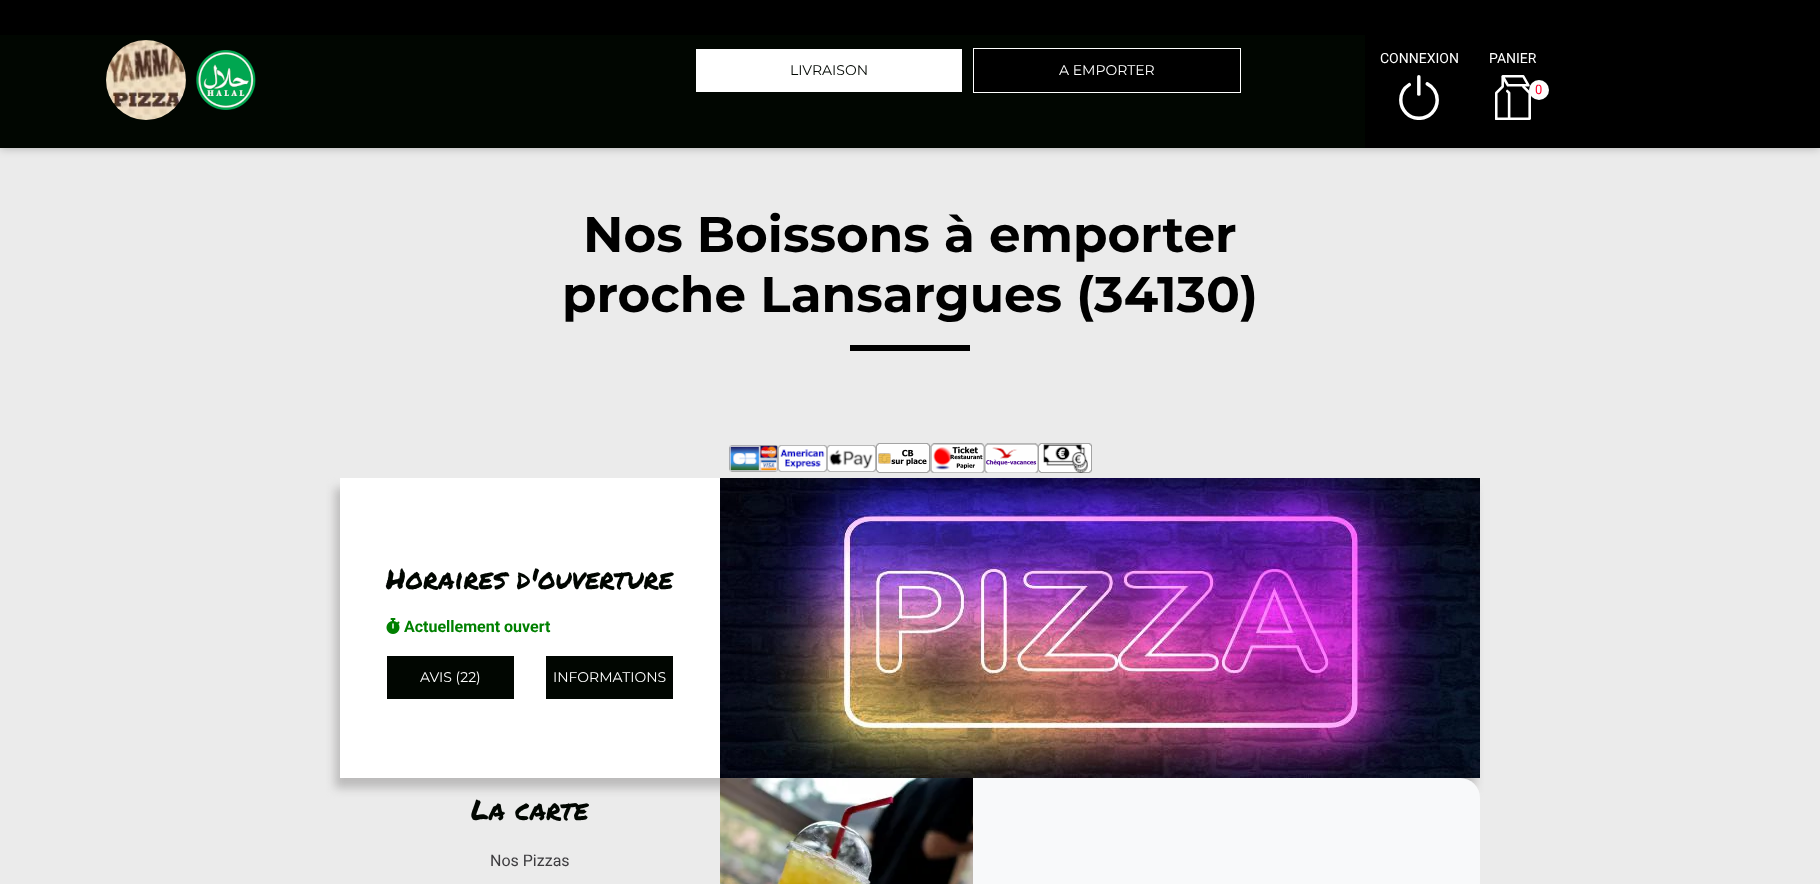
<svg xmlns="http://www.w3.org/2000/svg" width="1820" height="884">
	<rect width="100%" height="100%" fill="#EBEBEB" />
	<rect x="0" y="0" width="1820" height="35" fill="#000000" />
	<rect x="0" y="35" width="1820" height="113" fill="#000101" fill-opacity="0.27" filter="blur(5px)" />
	<rect x="0" y="35" width="1365" height="113" fill="#010601" />
	<image x="106" y="40" width="80" height="80" href="assets/img1.png" />
	<image x="196" y="50" width="60" height="60" href="assets/img2.png" />
	<rect x="696" y="49" width="266" height="43" fill="#FFFFFF" />
	<text x="790" y="75" font-family="Montserrat" font-size="14" fill="#010601">LIVRAISON</text>
	<rect x="973.5" y="48.5" width="267" height="44" fill="#000000" stroke="#FFFFFF" />
	<text x="1059" y="75" font-family="Montserrat" font-size="14" fill="#FFFFFF">A EMPORTER</text>
	<rect x="1365" y="35" width="455" height="113" fill="#000000" />
	<text x="1380" y="63" font-family="Roboto" font-size="14" fill="#FFFFFF">CONNEXION</text>
	<image x="1399" y="75" width="40" height="45" href="assets/img3.png" />
	<text x="1489" y="63" font-family="Roboto" font-size="14" fill="#FFFFFF">PANIER</text>
	<image x="1495" y="75" width="36" height="45" href="assets/img4.png" />
	<circle cx="1539" cy="90" r="10" fill="#FFFFFF" />
	<text x="1535" y="94" font-family="Roboto" font-size="13" fill="#FF002A">0</text>
	<g font-family="Montserrat" font-size="50" font-weight="700" fill="#000000">
		<text x="583" y="252">Nos Boissons à emporter</text>
		<text x="562" y="312">proche Lansargues (34130)</text>
	</g>
	<rect x="850" y="345" width="120" height="6" fill="#000000" />
	<image x="729" y="445" width="49" height="27" href="assets/img5.png" />
	<image x="778" y="445" width="49" height="27" href="assets/img6.png" />
	<image x="827" y="445" width="49" height="27" href="assets/img7.png" />
	<rect x="335" y="488" width="1140" height="300" fill="#BCBBBB" filter="blur(5px)" />
	<image x="876" y="443" width="54" height="30" href="assets/img8.png" />
	<image x="930" y="443" width="54" height="30" href="assets/img9.png" />
	<image x="984" y="443" width="54" height="30" href="assets/img10.png" />
	<image x="1038" y="443" width="54" height="30" href="assets/img11.png" />
	<rect x="340" y="478" width="380" height="300" fill="#FFFFFF" />
	<text x="386" y="589" font-family="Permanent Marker" font-size="28" fill="#010601">Horaires d'ouverture</text>
	<image x="386" y="618" width="14" height="16" href="assets/img12.png" />
	<text x="404" y="632" font-family="Roboto" font-size="16" font-weight="700" fill="#008000">Actuellement ouvert</text>
	<rect x="387" y="656" width="127" height="43" fill="#010601" />
	<text x="420" y="682" font-family="Montserrat" font-size="14" fill="#FFFFFF">AVIS (22)</text>
	<rect x="546" y="656" width="127" height="43" fill="#010601" />
	<text x="553" y="682" font-family="Montserrat" font-size="14" fill="#FFFFFF">INFORMATIONS</text>
	<image x="720" y="478" width="760" height="300" href="assets/img13.png" />
	<text x="471" y="820" font-family="Permanent Marker" font-size="28" fill="#010601">La carte</text>
	<text x="490" y="866" font-family="Roboto" font-size="16" fill="#3D3C3F">Nos Pizzas</text>
	<rect x="720" y="778" width="760" height="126" rx="20" fill="#F8F9FA" />
	<image x="720" y="778" width="253" height="106" href="assets/img14.png" />
</svg>
